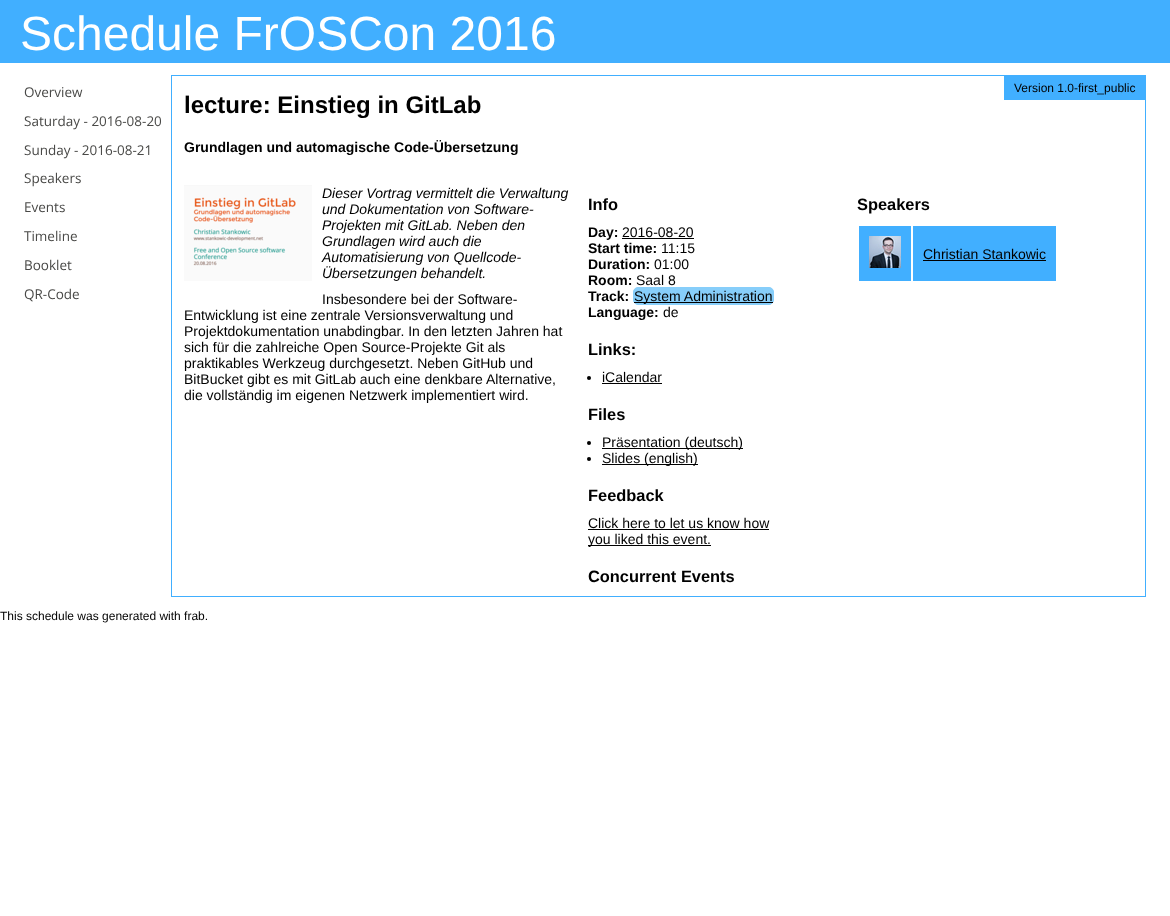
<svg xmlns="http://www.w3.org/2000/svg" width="1170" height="916">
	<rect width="100%" height="100%" fill="#FFFFFF" />
	<rect x="0" y="0" width="1170" height="63" fill="#41AFFF" />
	<text x="20" y="50" font-family="Liberation Sans" font-size="48" fill="#FFFFFF">Schedule FrOSCon 2016</text>
	<g font-family="Open Sans" font-size="13.5" fill="#494947">
		<text x="24" y="97">Overview</text>
		<text x="24" y="126">Saturday - 2016-08-20</text>
		<text x="24" y="155">Sunday - 2016-08-21</text>
		<text x="24" y="183">Speakers</text>
		<text x="24" y="212">Events</text>
		<text x="24" y="241">Timeline</text>
		<text x="24" y="270">Booklet</text>
		<text x="24" y="299">QR-Code</text>
	</g>
	<rect x="171.5" y="75.5" width="974" height="521" fill="none" stroke="#41AFFF" />
	<rect x="1004" y="76" width="141" height="24" fill="#41AFFF" />
	<text x="1014" y="92" font-family="Liberation Sans" font-size="12" fill="#000000">Version 1.0-first_public</text>
	<text x="184" y="113" font-family="Liberation Sans" font-size="24" font-weight="700" fill="#000000">lecture: Einstieg in GitLab</text>
	<text x="184" y="152" font-family="Liberation Sans" font-size="14" font-weight="700" fill="#000000">Grundlagen und automagische Code-Übersetzung</text>
	<image x="184" y="185" width="128" height="96" href="assets/img1.png" />
	<g font-family="Liberation Sans" font-size="14" font-style="italic" fill="#000000">
		<text x="322" y="198">Dieser Vortrag vermittelt die Verwaltung</text>
		<text x="322" y="214">und Dokumentation von Software-</text>
		<text x="322" y="230">Projekten mit GitLab. Neben den</text>
		<text x="322" y="246">Grundlagen wird auch die</text>
		<text x="322" y="262">Automatisierung von Quellcode-</text>
		<text x="322" y="278">Übersetzungen behandelt.</text>
	</g>
	<g font-family="Liberation Sans" font-size="14" fill="#000000">
		<text x="322" y="304">Insbesondere bei der Software-</text>
		<text x="184" y="320">Entwicklung ist eine zentrale Versionsverwaltung und</text>
		<text x="184" y="336">Projektdokumentation unabdingbar. In den letzten Jahren hat</text>
		<text x="184" y="352">sich für die zahlreiche Open Source-Projekte Git als</text>
		<text x="184" y="368">praktikables Werkzeug durchgesetzt. Neben GitHub und</text>
		<text x="184" y="384">BitBucket gibt es mit GitLab auch eine denkbare Alternative,</text>
		<text x="184" y="400">die vollständig im eigenen Netzwerk implementiert wird.</text>
	</g>
	<text x="588" y="210" font-family="Liberation Sans" font-size="16.4" font-weight="700" fill="#000000">Info</text>
	<text x="588" y="237" font-family="Liberation Sans" font-size="14" font-weight="700" fill="#000000">Day:</text>
	<text x="622" y="237" font-family="Liberation Sans" font-size="14" fill="#000000">2016-08-20</text>
	<rect x="622" y="238" width="72" height="1" fill="#000000" />
	<text x="588" y="253" font-family="Liberation Sans" font-size="14" font-weight="700" fill="#000000">Start time:</text>
	<text x="661" y="253" font-family="Liberation Sans" font-size="14" fill="#000000">11:15</text>
	<text x="588" y="269" font-family="Liberation Sans" font-size="14" font-weight="700" fill="#000000">Duration:</text>
	<text x="654" y="269" font-family="Liberation Sans" font-size="14" fill="#000000">01:00</text>
	<text x="588" y="285" font-family="Liberation Sans" font-size="14" font-weight="700" fill="#000000">Room:</text>
	<text x="636" y="285" font-family="Liberation Sans" font-size="14" fill="#000000">Saal 8</text>
	<text x="588" y="301" font-family="Liberation Sans" font-size="14" font-weight="700" fill="#000000">Track:</text>
	<rect x="633.5" y="287.5" width="140" height="17" rx="4.5" fill="#87CEFA" stroke="#87CEFA" />
	<rect x="634" y="302" width="139" height="1" fill="#000000" />
	<text x="634" y="301" font-family="Liberation Sans" font-size="14" fill="#000000">System Administration</text>
	<text x="588" y="317" font-family="Liberation Sans" font-size="14" font-weight="700" fill="#000000">Language:</text>
	<text x="663" y="317" font-family="Liberation Sans" font-size="14" fill="#000000">de</text>
	<text x="588" y="355" font-family="Liberation Sans" font-size="16.4" font-weight="700" fill="#000000">Links:</text>
	<circle cx="589" cy="378" r="2" fill="#000000" />
	<text x="602" y="382" font-family="Liberation Sans" font-size="14" fill="#000000">iCalendar</text>
	<rect x="602" y="383" width="60" height="1" fill="#000000" />
	<text x="588" y="420" font-family="Liberation Sans" font-size="16.4" font-weight="700" fill="#000000">Files</text>
	<circle cx="589" cy="443" r="2" fill="#000000" />
	<rect x="602" y="448" width="141" height="1" fill="#000000" />
	<text x="602" y="447" font-family="Liberation Sans" font-size="14" fill="#000000">Präsentation (deutsch)</text>
	<circle cx="589" cy="459" r="2" fill="#000000" />
	<rect x="602" y="464" width="96" height="1" fill="#000000" />
	<text x="602" y="463" font-family="Liberation Sans" font-size="14" fill="#000000">Slides (english)</text>
	<text x="588" y="501" font-family="Liberation Sans" font-size="16.4" font-weight="700" fill="#000000">Feedback</text>
	<text x="588" y="528" font-family="Liberation Sans" font-size="14" fill="#000000">Click here to let us know how</text>
	<rect x="588" y="529" width="181" height="1" fill="#000000" />
	<rect x="588" y="545" width="123" height="1" fill="#000000" />
	<text x="588" y="544" font-family="Liberation Sans" font-size="14" fill="#000000">you liked this event.</text>
	<g font-family="Liberation Sans" font-size="16.4" font-weight="700" fill="#000000">
		<text x="588" y="582">Concurrent Events</text>
		<text x="857" y="210">Speakers</text>
	</g>
	<rect x="859" y="226" width="52" height="55" fill="#41AFFF" />
	<image x="869" y="236" width="32" height="32" href="assets/img2.png" />
	<rect x="913" y="226" width="143" height="55" fill="#41AFFF" />
	<text x="923" y="259" font-family="Liberation Sans" font-size="14" fill="#000000">Christian Stankowic</text>
	<rect x="923" y="260" width="123" height="1" fill="#000000" />
	<text x="0" y="620" font-family="Liberation Sans" font-size="12" fill="#000000">This schedule was generated with frab.</text>
</svg>
